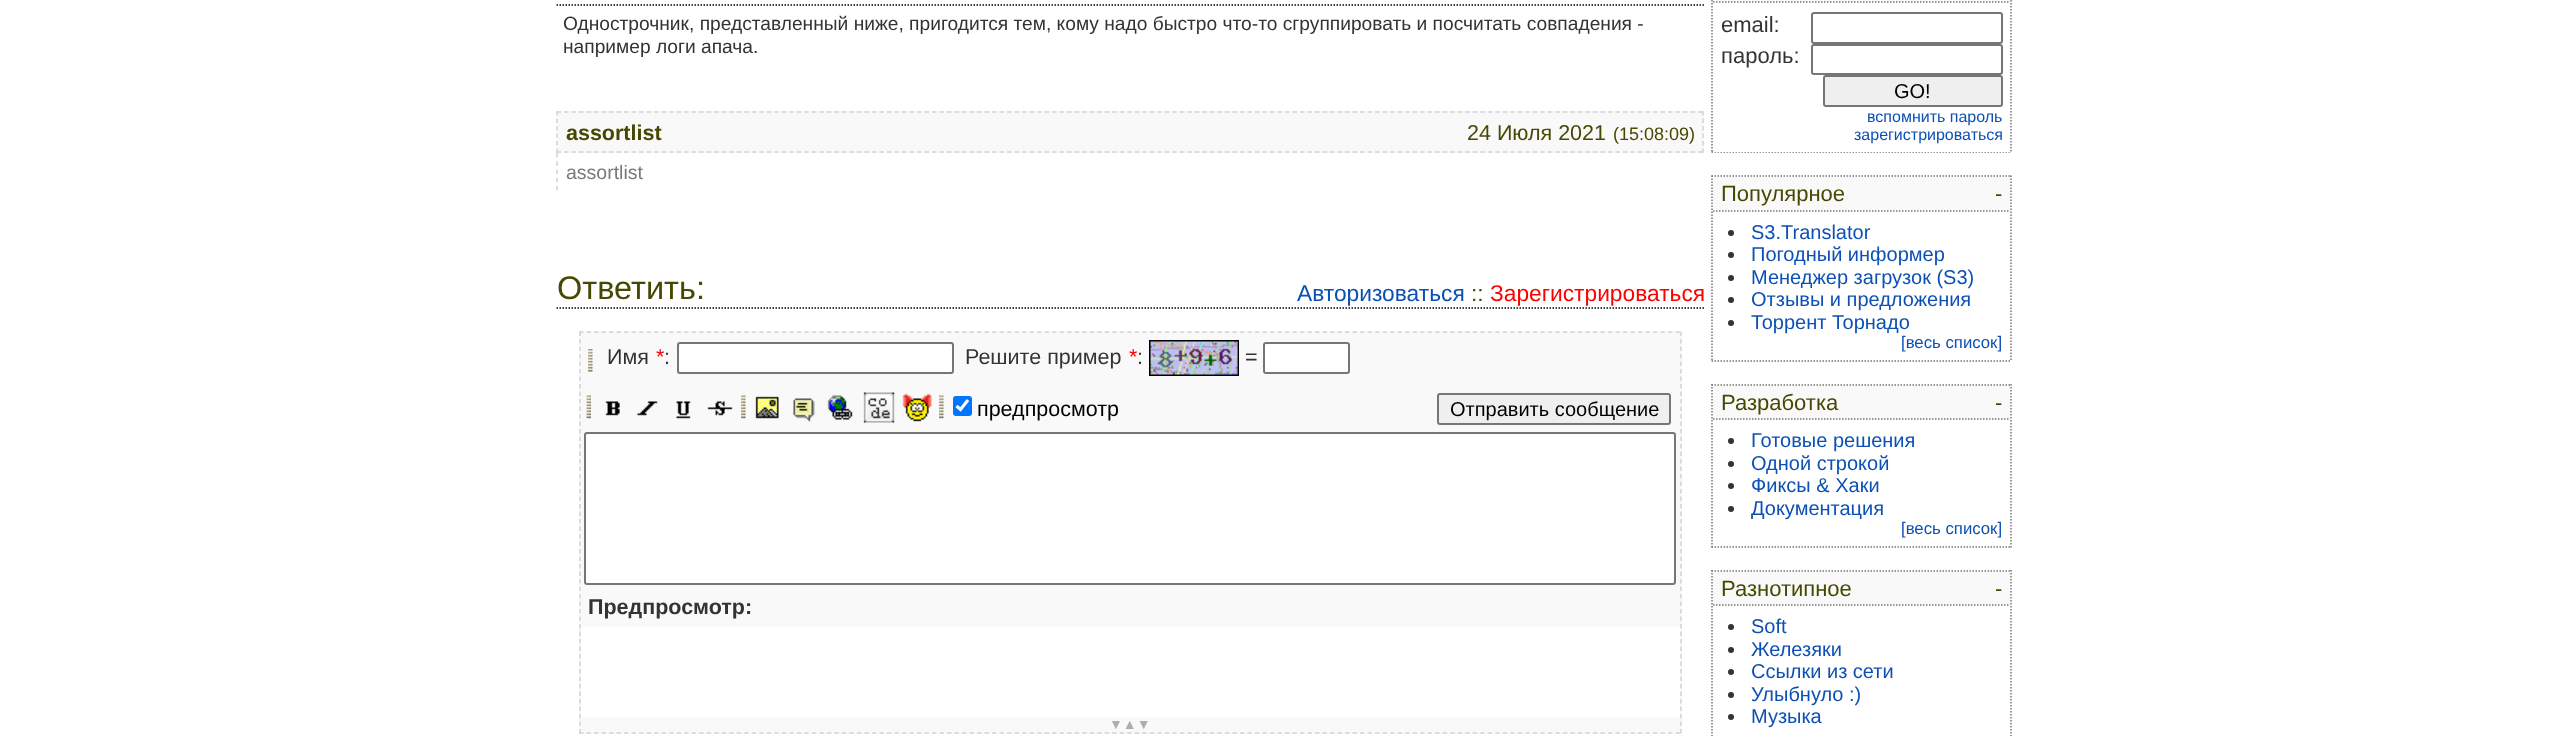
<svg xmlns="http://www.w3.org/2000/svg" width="2567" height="736">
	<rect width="100%" height="100%" fill="#FFFFFF" />
	<path d="M556.5 5H1704" fill="none" stroke="#000000" stroke-width="1.5" stroke-dasharray="1.5 1.5" />
	<g font-family="Liberation Sans" font-size="19.2" fill="#333333">
		<text x="563" y="30">Однострочник, представленный ниже, пригодится тем, кому надо быстро что-то сгруппировать и посчитать совпадения -</text>
		<text x="563" y="53">например логи апача.</text>
	</g>
	<rect x="557" y="111" width="1147" height="42" fill="#F9F9F9" />
	<path d="M556.5 112H1704" fill="none" stroke="#D2D2D2" stroke-width="1.5" stroke-dasharray="4.5 3.01" />
	<path d="M1703 111V153" fill="none" stroke="#D2D2D2" stroke-width="1.5" stroke-dasharray="4.5 3" />
	<path d="M556.5 152H1704" fill="none" stroke="#D2D2D2" stroke-width="1.5" stroke-dasharray="4.5 3.01" />
	<path d="M557 111V153" fill="none" stroke="#D2D2D2" stroke-width="1.5" stroke-dasharray="4.5 3" />
	<text x="566" y="140" font-family="Liberation Sans" font-size="21.5" font-weight="700" fill="#464901">assortlist</text>
	<text x="1467" y="140" font-family="Liberation Sans" font-size="21.5" fill="#464901">24 Июля 2021</text>
	<text x="1613" y="140" font-family="Liberation Sans" font-size="18" fill="#464901">(15:08:09)</text>
	<path d="M557 153V190.5" fill="none" stroke="#D2D2D2" stroke-width="1.5" stroke-dasharray="4.5 3.75" />
	<text x="566" y="179" font-family="Liberation Sans" font-size="19.5" fill="#797979">assortlist</text>
	<path d="M556.5 308H1704" fill="none" stroke="#000000" stroke-width="1.5" stroke-dasharray="1.5 1.5" />
	<text x="557" y="299" font-family="Liberation Sans" font-size="32.5" fill="#464901">Ответить:</text>
	<text x="1297" y="301" font-family="Liberation Sans" font-size="22.75" fill="#0C50B6">Авторизоваться</text>
	<text x="1471" y="301" font-family="Liberation Sans" font-size="22.75" fill="#464901">::</text>
	<text x="1490" y="301" font-family="Liberation Sans" font-size="22.75" fill="#FF0000">Зарегистрироваться</text>
	<rect x="579" y="332" width="1103" height="402" fill="#F9F9F9" />
	<path d="M579 332H1681.5" fill="none" stroke="#D2D2D2" stroke-width="1.5" stroke-dasharray="4.5 3.01" />
	<path d="M1681 331.5V733.5" fill="none" stroke="#D2D2D2" stroke-width="1.5" stroke-dasharray="4.5 3" />
	<path d="M579 733H1681.5" fill="none" stroke="#D2D2D2" stroke-width="1.5" stroke-dasharray="4.5 3.01" />
	<path d="M580 331.5V733.5" fill="none" stroke="#D2D2D2" stroke-width="1.5" stroke-dasharray="4.5 3" />
	<image x="588" y="349" width="5" height="23" href="assets/img1.png" />
	<text x="607" y="364" font-family="Liberation Sans" font-size="21.5" fill="#333333">Имя</text>
	<text x="656" y="364" font-family="Liberation Sans" font-size="21.5" fill="#FF0000">*</text>
	<text x="664" y="364" font-family="Liberation Sans" font-size="21.5" fill="#333333">:</text>
	<rect x="678" y="343" width="275" height="30" rx="2" fill="#FFFFFF" stroke="#767676" stroke-width="2" />
	<text x="965" y="364" font-family="Liberation Sans" font-size="21.5" fill="#333333">Решите пример</text>
	<text x="1129" y="364" font-family="Liberation Sans" font-size="21.5" fill="#FF0000">*</text>
	<text x="1137" y="364" font-family="Liberation Sans" font-size="21.5" fill="#333333">:</text>
	<image x="1149" y="340" width="90" height="36" href="assets/img2.png" />
	<text x="1245" y="364" font-family="Liberation Sans" font-size="21.5" fill="#333333">=</text>
	<rect x="1264" y="343" width="85" height="30" rx="2" fill="#FFFFFF" stroke="#767676" stroke-width="2" />
	<image x="586" y="395" width="5" height="24" href="assets/img3.png" />
	<image x="605" y="401" width="15" height="15" href="assets/img4.png" />
	<image x="637" y="401" width="21" height="15" href="assets/img5.png" />
	<image x="676" y="401" width="15" height="18" href="assets/img6.png" />
	<image x="707" y="401" width="26" height="15" href="assets/img7.png" />
	<image x="741" y="395" width="5" height="24" href="assets/img8.png" />
	<image x="755" y="396" width="24" height="23" href="assets/img9.png" />
	<image x="793" y="398" width="22" height="24" href="assets/img10.png" />
	<image x="827" y="395" width="26" height="25" href="assets/img11.png" />
	<image x="863" y="392" width="32" height="31" href="assets/img12.png" />
	<image x="902" y="393" width="30" height="29" href="assets/img13.png" />
	<image x="939" y="395" width="5" height="24" href="assets/img14.png" />
	<rect x="953" y="396" width="19" height="20" rx="3" fill="#0075FF" />
	<path d="M956.5 406L960.5 409.5L968 400" fill="none" stroke="#FFFFFF" stroke-width="3.1" />
	<text x="977" y="416" font-family="Liberation Sans" font-size="21.5" fill="#000000">предпросмотр</text>
	<rect x="1438" y="394" width="232" height="30" rx="2" fill="#EFEFEF" stroke="#767676" stroke-width="2" />
	<text x="1450" y="416" font-family="Liberation Sans" font-size="20" fill="#000000">Отправить сообщение</text>
	<rect x="585" y="433" width="1090" height="151" rx="2" fill="#FFFFFF" stroke="#767676" stroke-width="2" />
	<text x="588" y="614" font-family="Liberation Sans" font-size="21.5" font-weight="700" fill="#333333">Предпросмотр:</text>
	<rect x="581" y="627" width="1099" height="90" fill="#FFFFFF" />
	<text x="1109" y="729" font-family="Liberation Sans" font-size="14" fill="#AEAEAE">▼▲▼</text>
	<path d="M2011-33V153" fill="none" stroke="#757575" stroke-width="1.5" stroke-dasharray="1.5 1.5" />
	<path d="M1711.5 152H2011.5" fill="none" stroke="#757575" stroke-width="1.5" stroke-dasharray="1.5 1.5" />
	<path d="M1712-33V153" fill="none" stroke="#757575" stroke-width="1.5" stroke-dasharray="1.5 1.5" />
	<rect x="1713" y="0" width="297" height="2" fill="#F9F9F9" />
	<rect x="1714" y="151" width="296" height="1" fill="#FFFFFF" />
	<path d="M1713 2H2010" fill="none" stroke="#757575" stroke-width="1.5" stroke-dasharray="1.5 1.5" />
	<text x="1721" y="32" font-family="Liberation Sans" font-size="22" fill="#333333">email:</text>
	<rect x="1812" y="13" width="190" height="30" rx="2" fill="none" stroke="#767676" stroke-width="2" />
	<text x="1721" y="63" font-family="Liberation Sans" font-size="22" fill="#333333">пароль:</text>
	<rect x="1812" y="45" width="190" height="29" rx="2" fill="none" stroke="#767676" stroke-width="2" />
	<rect x="1824" y="76" width="178" height="30" rx="2" fill="#EFEFEF" stroke="#767676" stroke-width="2" />
	<text x="1894" y="98" font-family="Liberation Sans" font-size="20" fill="#000000">GO!</text>
	<g font-family="Liberation Sans" font-size="16" fill="#0C50B6">
		<text x="1867" y="122">вспомнить пароль</text>
		<text x="1854" y="140">зарегистрироваться</text>
	</g>
	<path d="M1711.5 176H2011.5" fill="none" stroke="#757575" stroke-width="1.5" stroke-dasharray="1.5 1.5" />
	<path d="M2011 175.5V361.5" fill="none" stroke="#757575" stroke-width="1.5" stroke-dasharray="1.5 1.5" />
	<path d="M1711.5 361H2011.5" fill="none" stroke="#757575" stroke-width="1.5" stroke-dasharray="1.5 1.5" />
	<path d="M1712 175.5V361.5" fill="none" stroke="#757575" stroke-width="1.5" stroke-dasharray="1.5 1.5" />
	<rect x="1713" y="177" width="297" height="33" fill="#F9F9F9" />
	<g font-family="Liberation Sans" font-size="22" fill="#464901">
		<text x="1721" y="201">Популярное</text>
		<text x="1995" y="201">-</text>
	</g>
	<path d="M1713 211H2010" fill="none" stroke="#757575" stroke-width="1.5" stroke-dasharray="1.5 1.5" />
	<circle cx="1731" cy="233" r="3" fill="#333333" />
	<text x="1751" y="239" font-family="Liberation Sans" font-size="20" fill="#0C50B6">S3.Translator</text>
	<circle cx="1731" cy="255" r="3" fill="#333333" />
	<text x="1751" y="261" font-family="Liberation Sans" font-size="20" fill="#0C50B6">Погодный информер</text>
	<circle cx="1731" cy="278" r="3" fill="#333333" />
	<text x="1751" y="284" font-family="Liberation Sans" font-size="20" fill="#0C50B6">Менеджер загрузок (S3)</text>
	<circle cx="1731" cy="300" r="3" fill="#333333" />
	<text x="1751" y="306" font-family="Liberation Sans" font-size="20" fill="#0C50B6">Отзывы и предложения</text>
	<circle cx="1731" cy="323" r="3" fill="#333333" />
	<text x="1751" y="329" font-family="Liberation Sans" font-size="20" fill="#0C50B6">Торрент Торнадо</text>
	<text x="1901" y="348" font-family="Liberation Sans" font-size="16.75" fill="#0C50B6">[весь список]</text>
	<path d="M1711.5 385H2011.5" fill="none" stroke="#757575" stroke-width="1.5" stroke-dasharray="1.5 1.5" />
	<path d="M2011 384V547.5" fill="none" stroke="#757575" stroke-width="1.5" stroke-dasharray="1.5 1.5" />
	<path d="M1711.5 547H2011.5" fill="none" stroke="#757575" stroke-width="1.5" stroke-dasharray="1.5 1.5" />
	<path d="M1712 384V547.5" fill="none" stroke="#757575" stroke-width="1.5" stroke-dasharray="1.5 1.5" />
	<rect x="1713" y="386" width="297" height="33" fill="#F9F9F9" />
	<g font-family="Liberation Sans" font-size="22" fill="#464901">
		<text x="1721" y="410">Разработка</text>
		<text x="1995" y="410">-</text>
	</g>
	<path d="M1713 419H2010" fill="none" stroke="#757575" stroke-width="1.5" stroke-dasharray="1.5 1.5" />
	<circle cx="1731" cy="441" r="3" fill="#333333" />
	<text x="1751" y="447" font-family="Liberation Sans" font-size="20" fill="#0C50B6">Готовые решения</text>
	<circle cx="1731" cy="464" r="3" fill="#333333" />
	<text x="1751" y="470" font-family="Liberation Sans" font-size="20" fill="#0C50B6">Одной строкой</text>
	<circle cx="1731" cy="486" r="3" fill="#333333" />
	<text x="1751" y="492" font-family="Liberation Sans" font-size="20" fill="#0C50B6">Фиксы &amp; Хаки</text>
	<circle cx="1731" cy="509" r="3" fill="#333333" />
	<text x="1751" y="515" font-family="Liberation Sans" font-size="20" fill="#0C50B6">Документация</text>
	<text x="1901" y="534" font-family="Liberation Sans" font-size="16.75" fill="#0C50B6">[весь список]</text>
	<path d="M1711.5 571H2011.5" fill="none" stroke="#757575" stroke-width="1.5" stroke-dasharray="1.5 1.5" />
	<path d="M2011 570V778.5" fill="none" stroke="#757575" stroke-width="1.5" stroke-dasharray="1.5 1.5" />
	<path d="M1712 570V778.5" fill="none" stroke="#757575" stroke-width="1.5" stroke-dasharray="1.5 1.5" />
	<rect x="1713" y="572" width="297" height="33" fill="#F9F9F9" />
	<g font-family="Liberation Sans" font-size="22" fill="#464901">
		<text x="1721" y="596">Разнотипное</text>
		<text x="1995" y="596">-</text>
	</g>
	<path d="M1713 605H2010" fill="none" stroke="#757575" stroke-width="1.5" stroke-dasharray="1.5 1.5" />
	<circle cx="1731" cy="627" r="3" fill="#333333" />
	<text x="1751" y="633" font-family="Liberation Sans" font-size="20" fill="#0C50B6">Soft</text>
	<circle cx="1731" cy="650" r="3" fill="#333333" />
	<text x="1751" y="656" font-family="Liberation Sans" font-size="20" fill="#0C50B6">Железяки</text>
	<circle cx="1731" cy="672" r="3" fill="#333333" />
	<text x="1751" y="678" font-family="Liberation Sans" font-size="20" fill="#0C50B6">Ссылки из сети</text>
	<circle cx="1731" cy="695" r="3" fill="#333333" />
	<text x="1751" y="701" font-family="Liberation Sans" font-size="20" fill="#0C50B6">Улыбнуло :)</text>
	<circle cx="1731" cy="717" r="3" fill="#333333" />
	<text x="1751" y="723" font-family="Liberation Sans" font-size="20" fill="#0C50B6">Музыка</text>
</svg>
